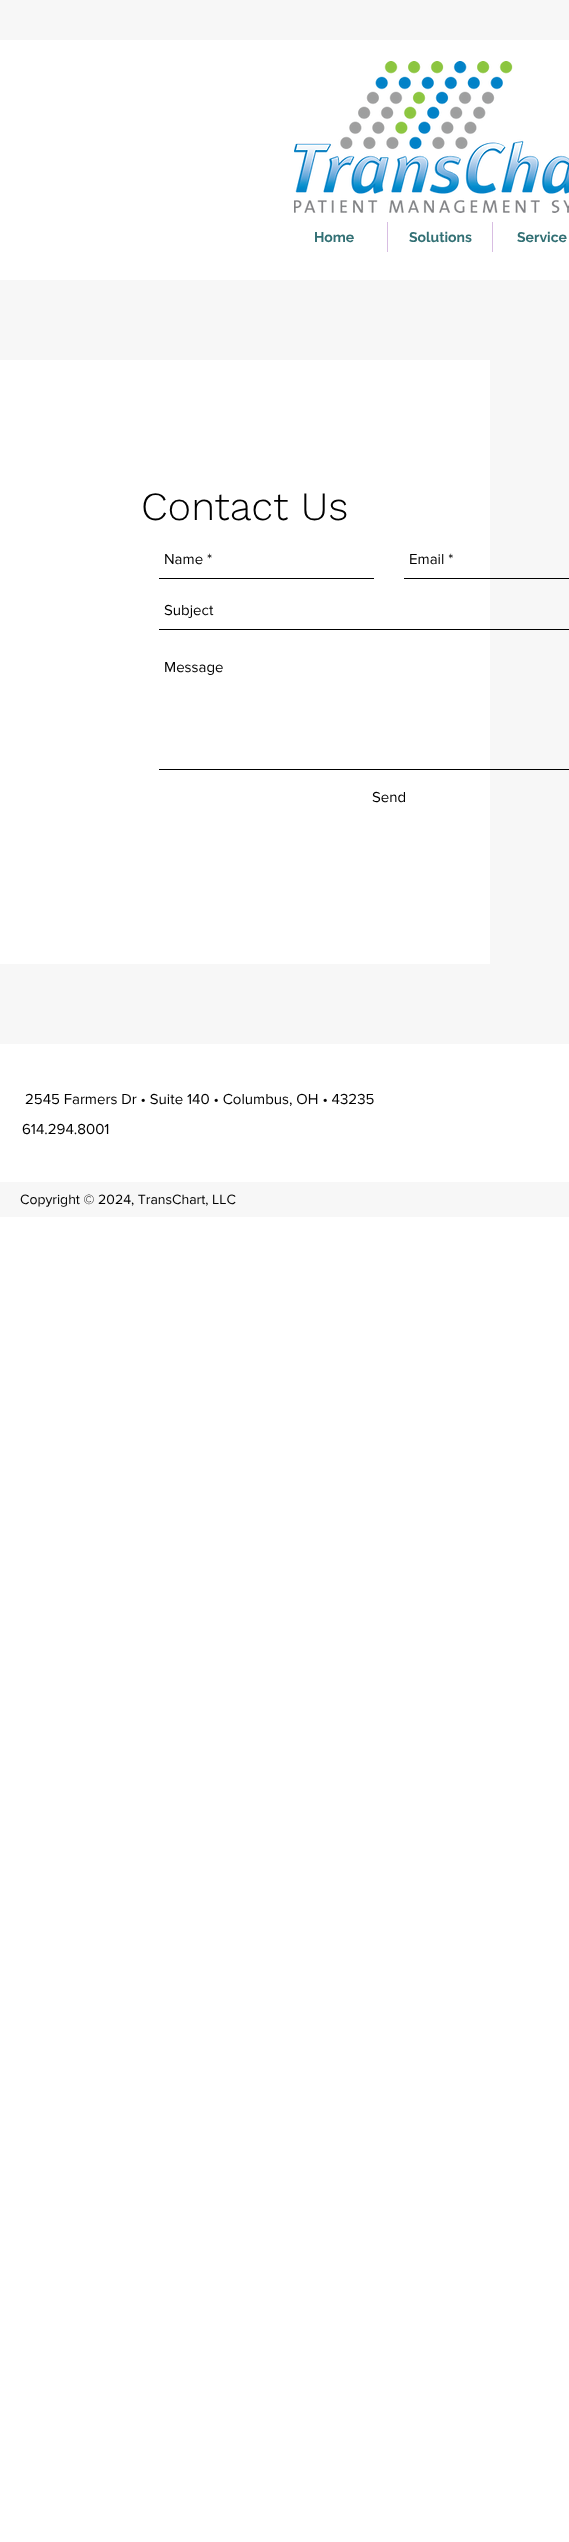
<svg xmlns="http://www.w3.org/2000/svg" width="569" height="2542">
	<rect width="100%" height="100%" fill="#FFFFFF" />
	<rect x="0" y="0" width="569" height="40" fill="#F7F7F7" />
	<image x="294" y="61" width="275" height="152" href="assets/img1.png" />
	<text x="314" y="242" font-family="Raleway" font-size="14" font-weight="700" fill="#327074">Home</text>
	<rect x="387" y="222" width="1" height="30" fill="#D8BDE2" />
	<text x="409" y="242" font-family="Raleway" font-size="14" font-weight="700" fill="#327074">Solutions</text>
	<rect x="492" y="222" width="1" height="30" fill="#D8BDE2" />
	<text x="517" y="242" font-family="Raleway" font-size="14" font-weight="700" fill="#327074">Service</text>
	<rect x="0" y="280" width="569" height="764" fill="#F7F7F7" />
	<rect x="0" y="360" width="490" height="604" fill="#FFFFFF" />
	<text x="141" y="520" font-family="Work Sans" font-size="40" font-weight="300" fill="#000000">Contact Us</text>
	<rect x="159" y="578" width="215" height="1" fill="#000000" />
	<text x="164" y="564" font-family="'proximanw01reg'" font-size="15" fill="#000000">Name *</text>
	<rect x="404" y="578" width="165" height="1" fill="#000000" />
	<text x="409" y="564" font-family="'proximanw01reg'" font-size="15" fill="#000000">Email *</text>
	<rect x="159" y="629" width="410" height="1" fill="#000000" />
	<text x="164" y="615" font-family="'proximanw01reg'" font-size="15" fill="#000000">Subject</text>
	<rect x="159" y="769" width="410" height="1" fill="#000000" />
	<g font-family="'proximanw01reg'" font-size="15" fill="#000000">
		<text x="164" y="672">Message</text>
		<text x="372" y="802">Send</text>
		<text x="25" y="1104">2545 Farmers Dr • Suite 140 • Columbus, OH • 43235</text>
		<text x="22" y="1134">614.294.8001</text>
	</g>
	<rect x="0" y="1182" width="569" height="35" fill="#F7F7F7" />
	<text x="20" y="1204" font-family="'proximanw01reg'" font-size="14" fill="#000000">Copyright © 2024, TransChart, LLC</text>
</svg>
